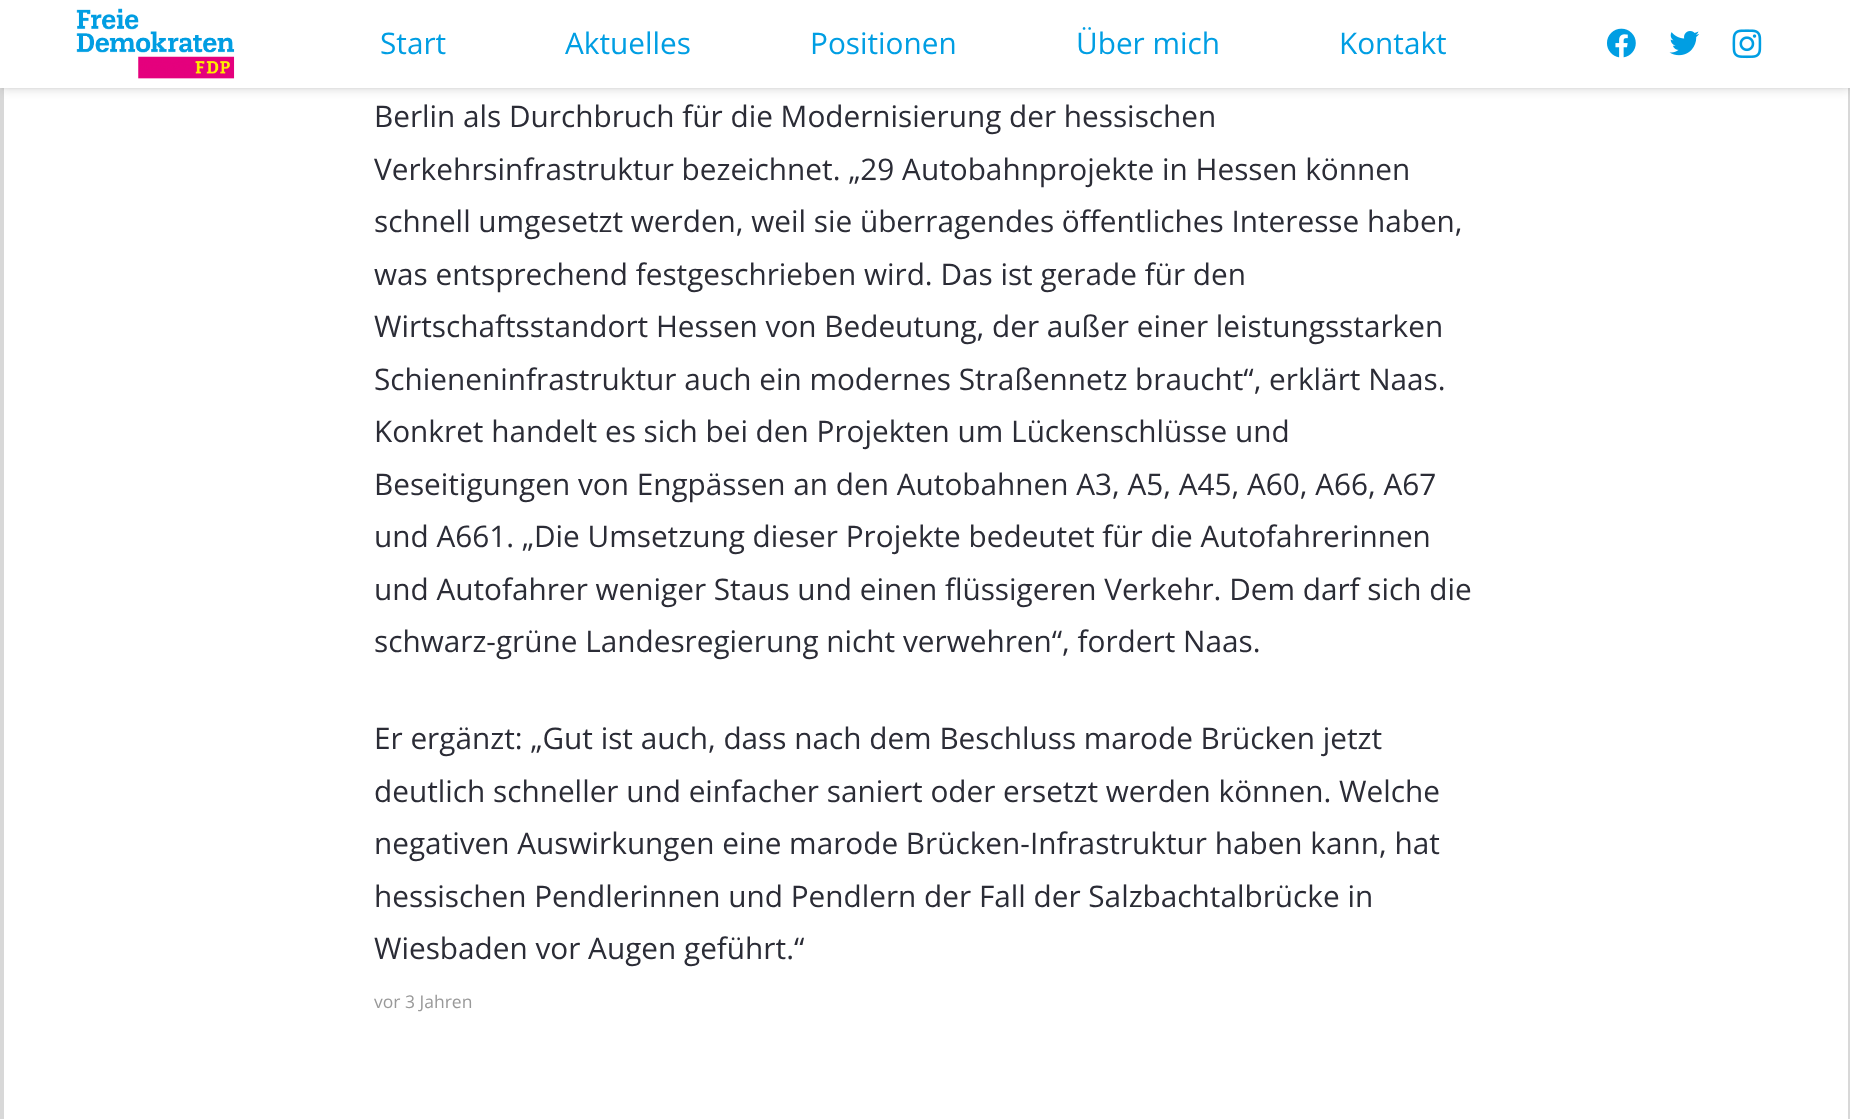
<svg xmlns="http://www.w3.org/2000/svg" width="1850" height="1119">
	<rect width="100%" height="100%" fill="#FFFFFF" />
	<rect x="2" y="-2" width="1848" height="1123" fill="none" stroke="#D8D8D8" stroke-width="4" />
	<rect x="2" y="5" width="1848" height="84" fill="#000000" fill-opacity="0.05" filter="blur(1px)" />
	<rect x="2" y="7" width="1848" height="84" fill="#000000" fill-opacity="0.1" filter="blur(4.5px)" />
	<rect x="0" y="0" width="1850" height="88" fill="#FFFFFF" />
	<image x="76" y="8" width="159" height="71" href="assets/img1.png" />
	<g font-family="Open Sans" font-size="29.75" fill="#009EE3">
		<text x="380" y="54">Start</text>
		<text x="565" y="54">Aktuelles</text>
		<text x="810" y="54">Positionen</text>
		<text x="1076" y="54">Über mich</text>
		<text x="1339" y="54">Kontakt</text>
	</g>
	<image x="1607" y="28" width="29" height="30" href="assets/img2.png" />
	<image x="1669" y="31" width="30" height="25" href="assets/img3.png" />
	<image x="1732" y="29" width="30" height="30" href="assets/img4.png" />
	<g font-family="Open Sans" font-size="29.75" fill="#2B2C36">
		<text x="374" y="127">Berlin als Durchbruch für die Modernisierung der hessischen</text>
		<text x="374" y="180">Verkehrsinfrastruktur bezeichnet. „29 Autobahnprojekte in Hessen können</text>
		<text x="374" y="232">schnell umgesetzt werden, weil sie überragendes öffentliches Interesse haben,</text>
		<text x="374" y="285">was entsprechend festgeschrieben wird. Das ist gerade für den</text>
		<text x="374" y="337">Wirtschaftsstandort Hessen von Bedeutung, der außer einer leistungsstarken</text>
		<text x="374" y="390">Schieneninfrastruktur auch ein modernes Straßennetz braucht“, erklärt Naas.</text>
		<text x="374" y="442">Konkret handelt es sich bei den Projekten um Lückenschlüsse und</text>
		<text x="374" y="495">Beseitigungen von Engpässen an den Autobahnen A3, A5, A45, A60, A66, A67</text>
		<text x="374" y="547">und A661. „Die Umsetzung dieser Projekte bedeutet für die Autofahrerinnen</text>
		<text x="374" y="600">und Autofahrer weniger Staus und einen flüssigeren Verkehr. Dem darf sich die</text>
		<text x="374" y="652">schwarz-grüne Landesregierung nicht verwehren“, fordert Naas.</text>
		<text x="374" y="749">Er ergänzt: „Gut ist auch, dass nach dem Beschluss marode Brücken jetzt</text>
		<text x="374" y="802">deutlich schneller und einfacher saniert oder ersetzt werden können. Welche</text>
		<text x="374" y="854">negativen Auswirkungen eine marode Brücken-Infrastruktur haben kann, hat</text>
		<text x="374" y="907">hessischen Pendlerinnen und Pendlern der Fall der Salzbachtalbrücke in</text>
		<text x="374" y="959">Wiesbaden vor Augen geführt.“</text>
	</g>
	<text x="374" y="1008" font-family="Open Sans" font-size="17.5" fill="#999999">vor 3 Jahren</text>
</svg>
